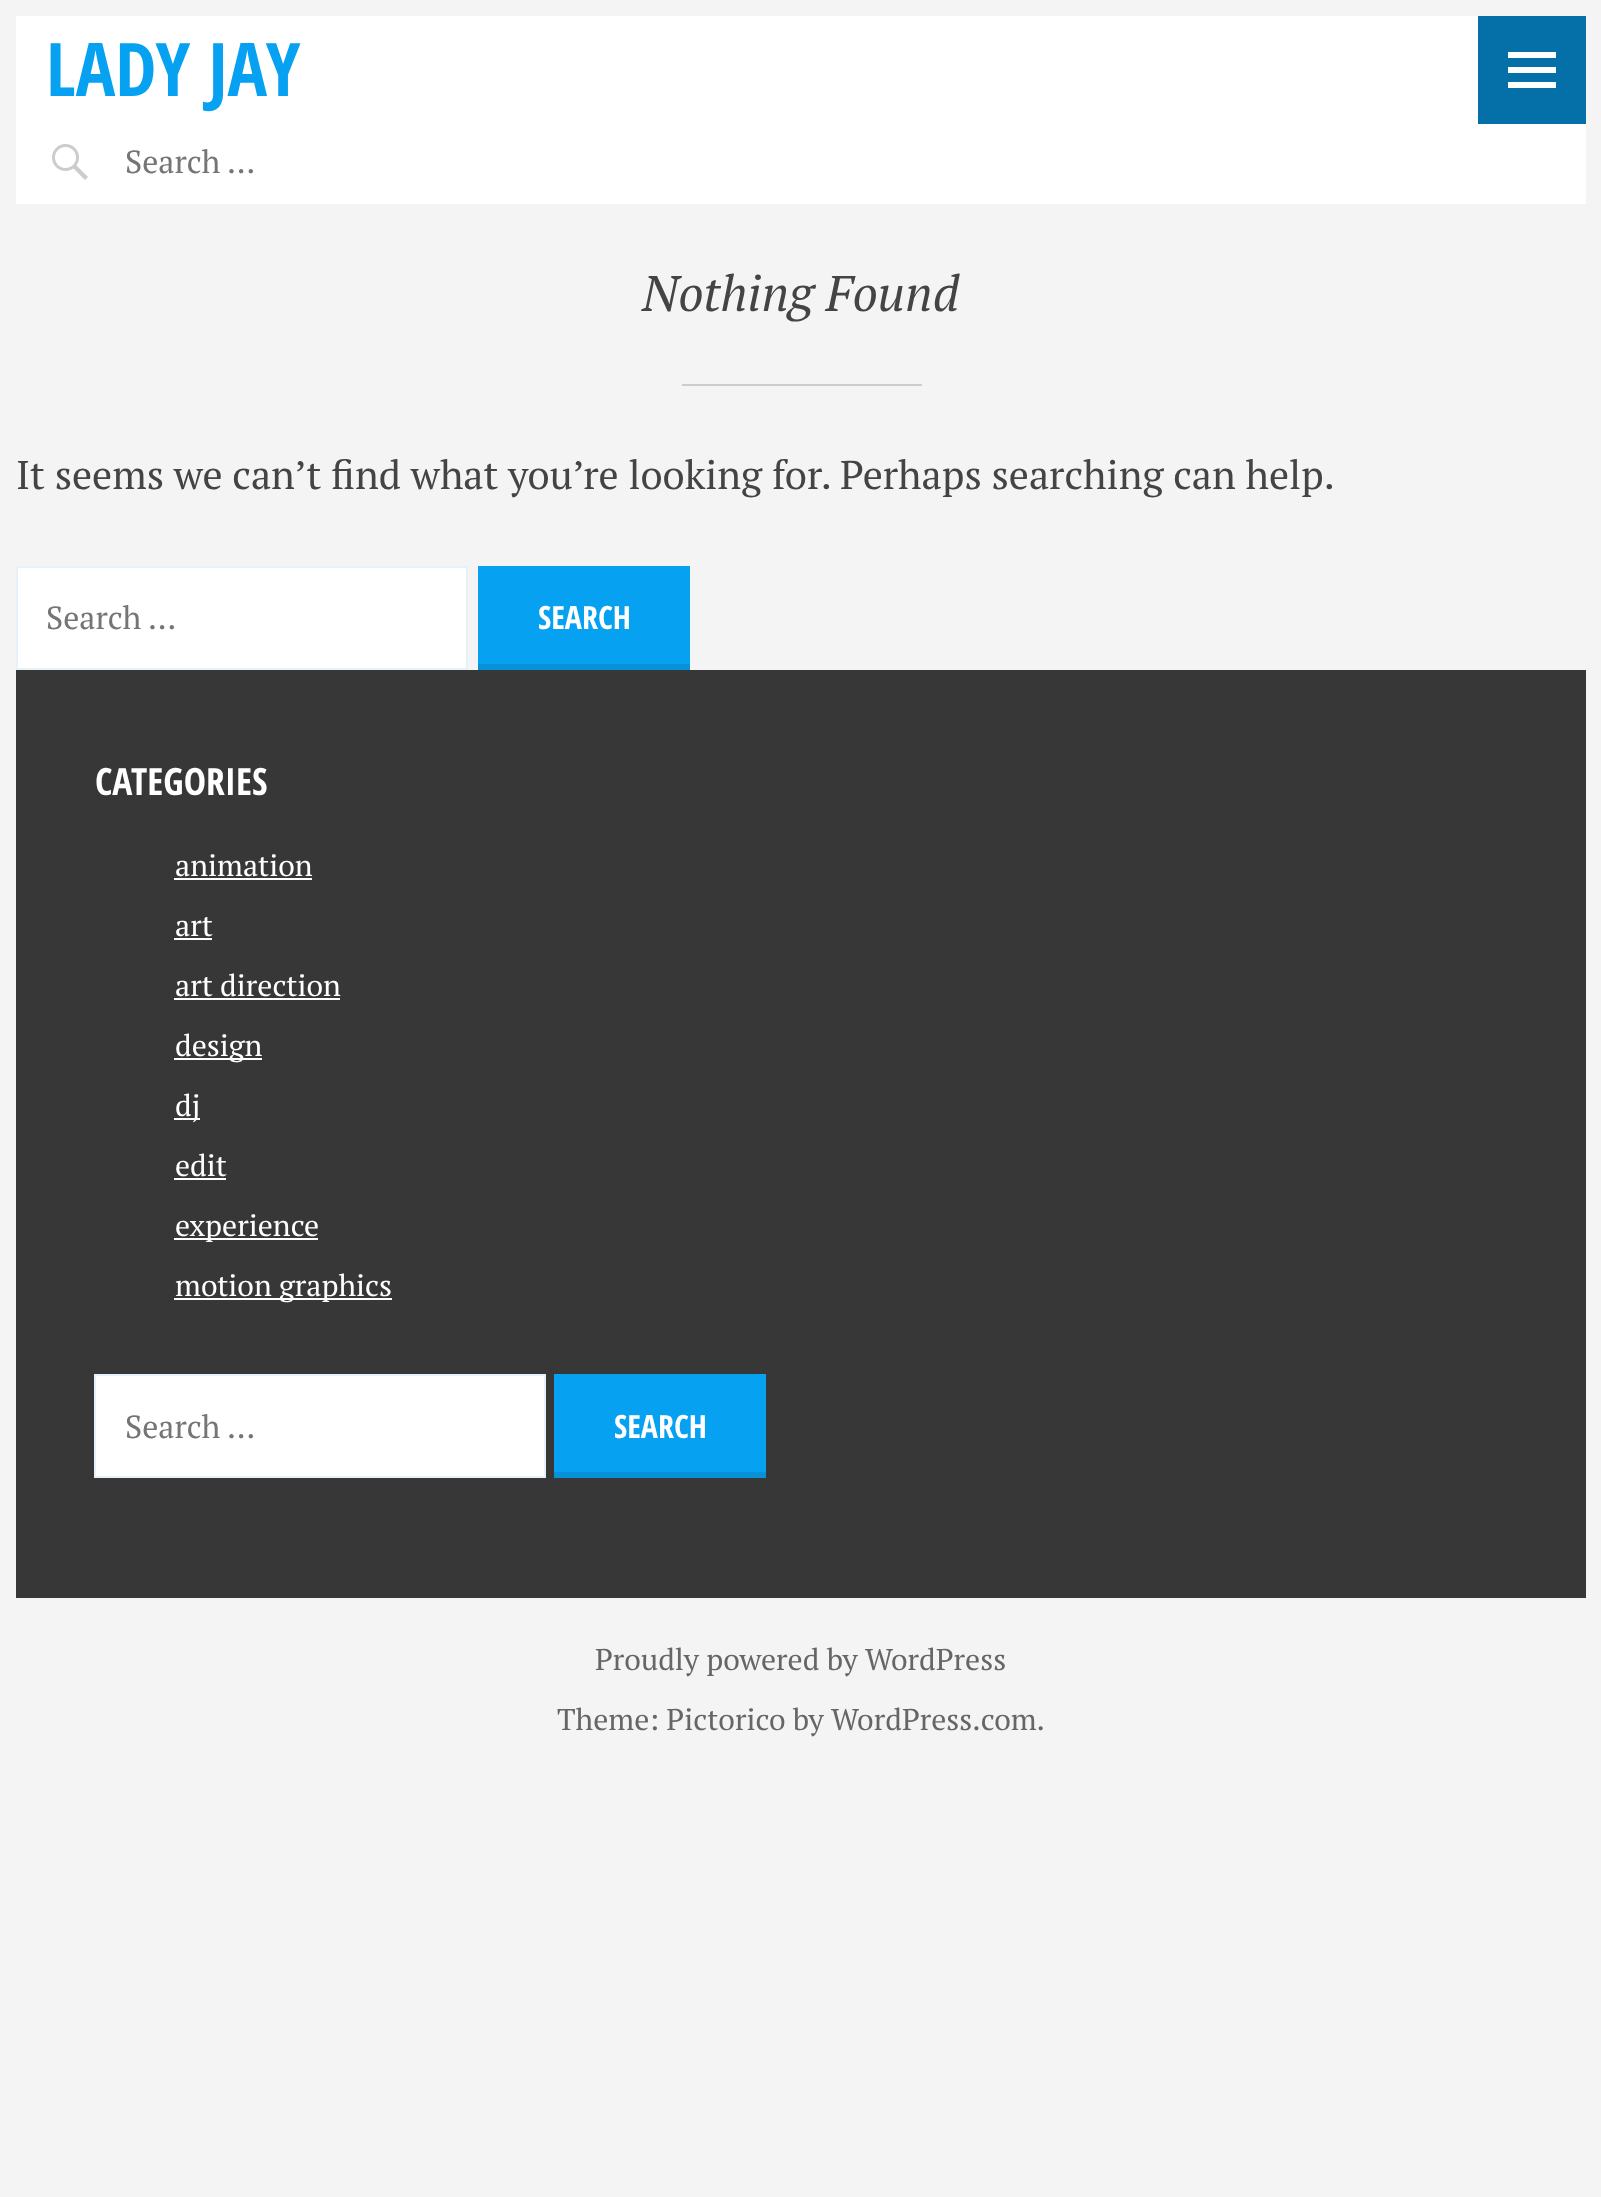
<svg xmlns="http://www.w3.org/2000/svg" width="1601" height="2197">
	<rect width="100%" height="100%" fill="#F4F4F4" />
	<rect x="16" y="16" width="1570" height="188" fill="#FFFFFF" />
	<text x="46" y="96" font-family="Open Sans Condensed" font-size="74" font-weight="700" fill="#07A1F2">LADY JAY</text>
	<rect x="1478" y="16" width="108" height="108" fill="#0570A8" />
	<path d="M1508 88V82H1556V88ZM1508 52H1556V58H1508ZM1508 73V67H1556V73Z" fill="#FFFFFF" />
	<image x="52" y="144" width="36" height="36" href="assets/img1.png" />
	<text x="125" y="173" font-family="PT Serif" font-size="32" fill="#757575">Search …</text>
	<text x="642" y="311" font-family="PT Serif" font-size="50" font-style="italic" fill="#444444">Nothing Found</text>
	<rect x="682" y="384" width="240" height="2" fill="#CCCCCC" />
	<text x="16" y="489" font-family="PT Serif" font-size="40" fill="#444444">It seems we can’t find what you’re looking for. Perhaps searching can help.</text>
	<rect x="17" y="567" width="450" height="102" fill="#FFFFFF" stroke="#E7F2F8" stroke-width="2" />
	<text x="46" y="629" font-family="PT Serif" font-size="32" fill="#757575">Search …</text>
	<rect x="478" y="566" width="212" height="98" fill="#07A1F2" />
	<rect x="478" y="664" width="212" height="6" fill="#0691D9" />
	<text x="538" y="629" font-family="Open Sans Condensed" font-size="32" font-weight="700" fill="#FFFFFF">SEARCH</text>
	<rect x="16" y="670" width="1570" height="928" fill="#373737" />
	<text x="95" y="795" font-family="Open Sans Condensed" font-size="37.5" font-weight="700" fill="#FFFFFF">CATEGORIES</text>
	<text x="175" y="876" font-family="PT Serif" font-size="30" fill="#FFFFFF">animation</text>
	<rect x="174" y="878" width="138" height="2" fill="#FFFFFF" />
	<text x="175" y="936" font-family="PT Serif" font-size="30" fill="#FFFFFF">art</text>
	<rect x="174" y="938" width="38" height="2" fill="#FFFFFF" />
	<text x="175" y="996" font-family="PT Serif" font-size="30" fill="#FFFFFF">art direction</text>
	<rect x="174" y="998" width="166" height="2" fill="#FFFFFF" />
	<rect x="174" y="1058" width="88" height="2" fill="#FFFFFF" />
	<text x="175" y="1056" font-family="PT Serif" font-size="30" fill="#FFFFFF">design</text>
	<rect x="174" y="1118" width="26" height="2" fill="#FFFFFF" />
	<g font-family="PT Serif" font-size="30" fill="#FFFFFF">
		<text x="175" y="1116">dj</text>
		<text x="175" y="1176">edit</text>
	</g>
	<rect x="174" y="1178" width="52" height="2" fill="#FFFFFF" />
	<rect x="174" y="1238" width="144" height="2" fill="#FFFFFF" />
	<text x="175" y="1236" font-family="PT Serif" font-size="30" fill="#FFFFFF">experience</text>
	<rect x="174" y="1298" width="218" height="2" fill="#FFFFFF" />
	<text x="175" y="1296" font-family="PT Serif" font-size="30" fill="#FFFFFF">motion graphics</text>
	<rect x="95" y="1375" width="450" height="102" fill="#FFFFFF" stroke="#E7F2F8" stroke-width="2" />
	<text x="125" y="1438" font-family="PT Serif" font-size="32" fill="#757575">Search …</text>
	<rect x="554" y="1374" width="212" height="98" fill="#07A1F2" />
	<rect x="554" y="1472" width="212" height="6" fill="#0691D9" />
	<text x="614" y="1438" font-family="Open Sans Condensed" font-size="32" font-weight="700" fill="#FFFFFF">SEARCH</text>
	<g font-family="PT Serif" font-size="30" fill="#666666">
		<text x="595" y="1670">Proudly powered by WordPress</text>
		<text x="557" y="1730">Theme: Pictorico by WordPress.com.</text>
	</g>
</svg>
